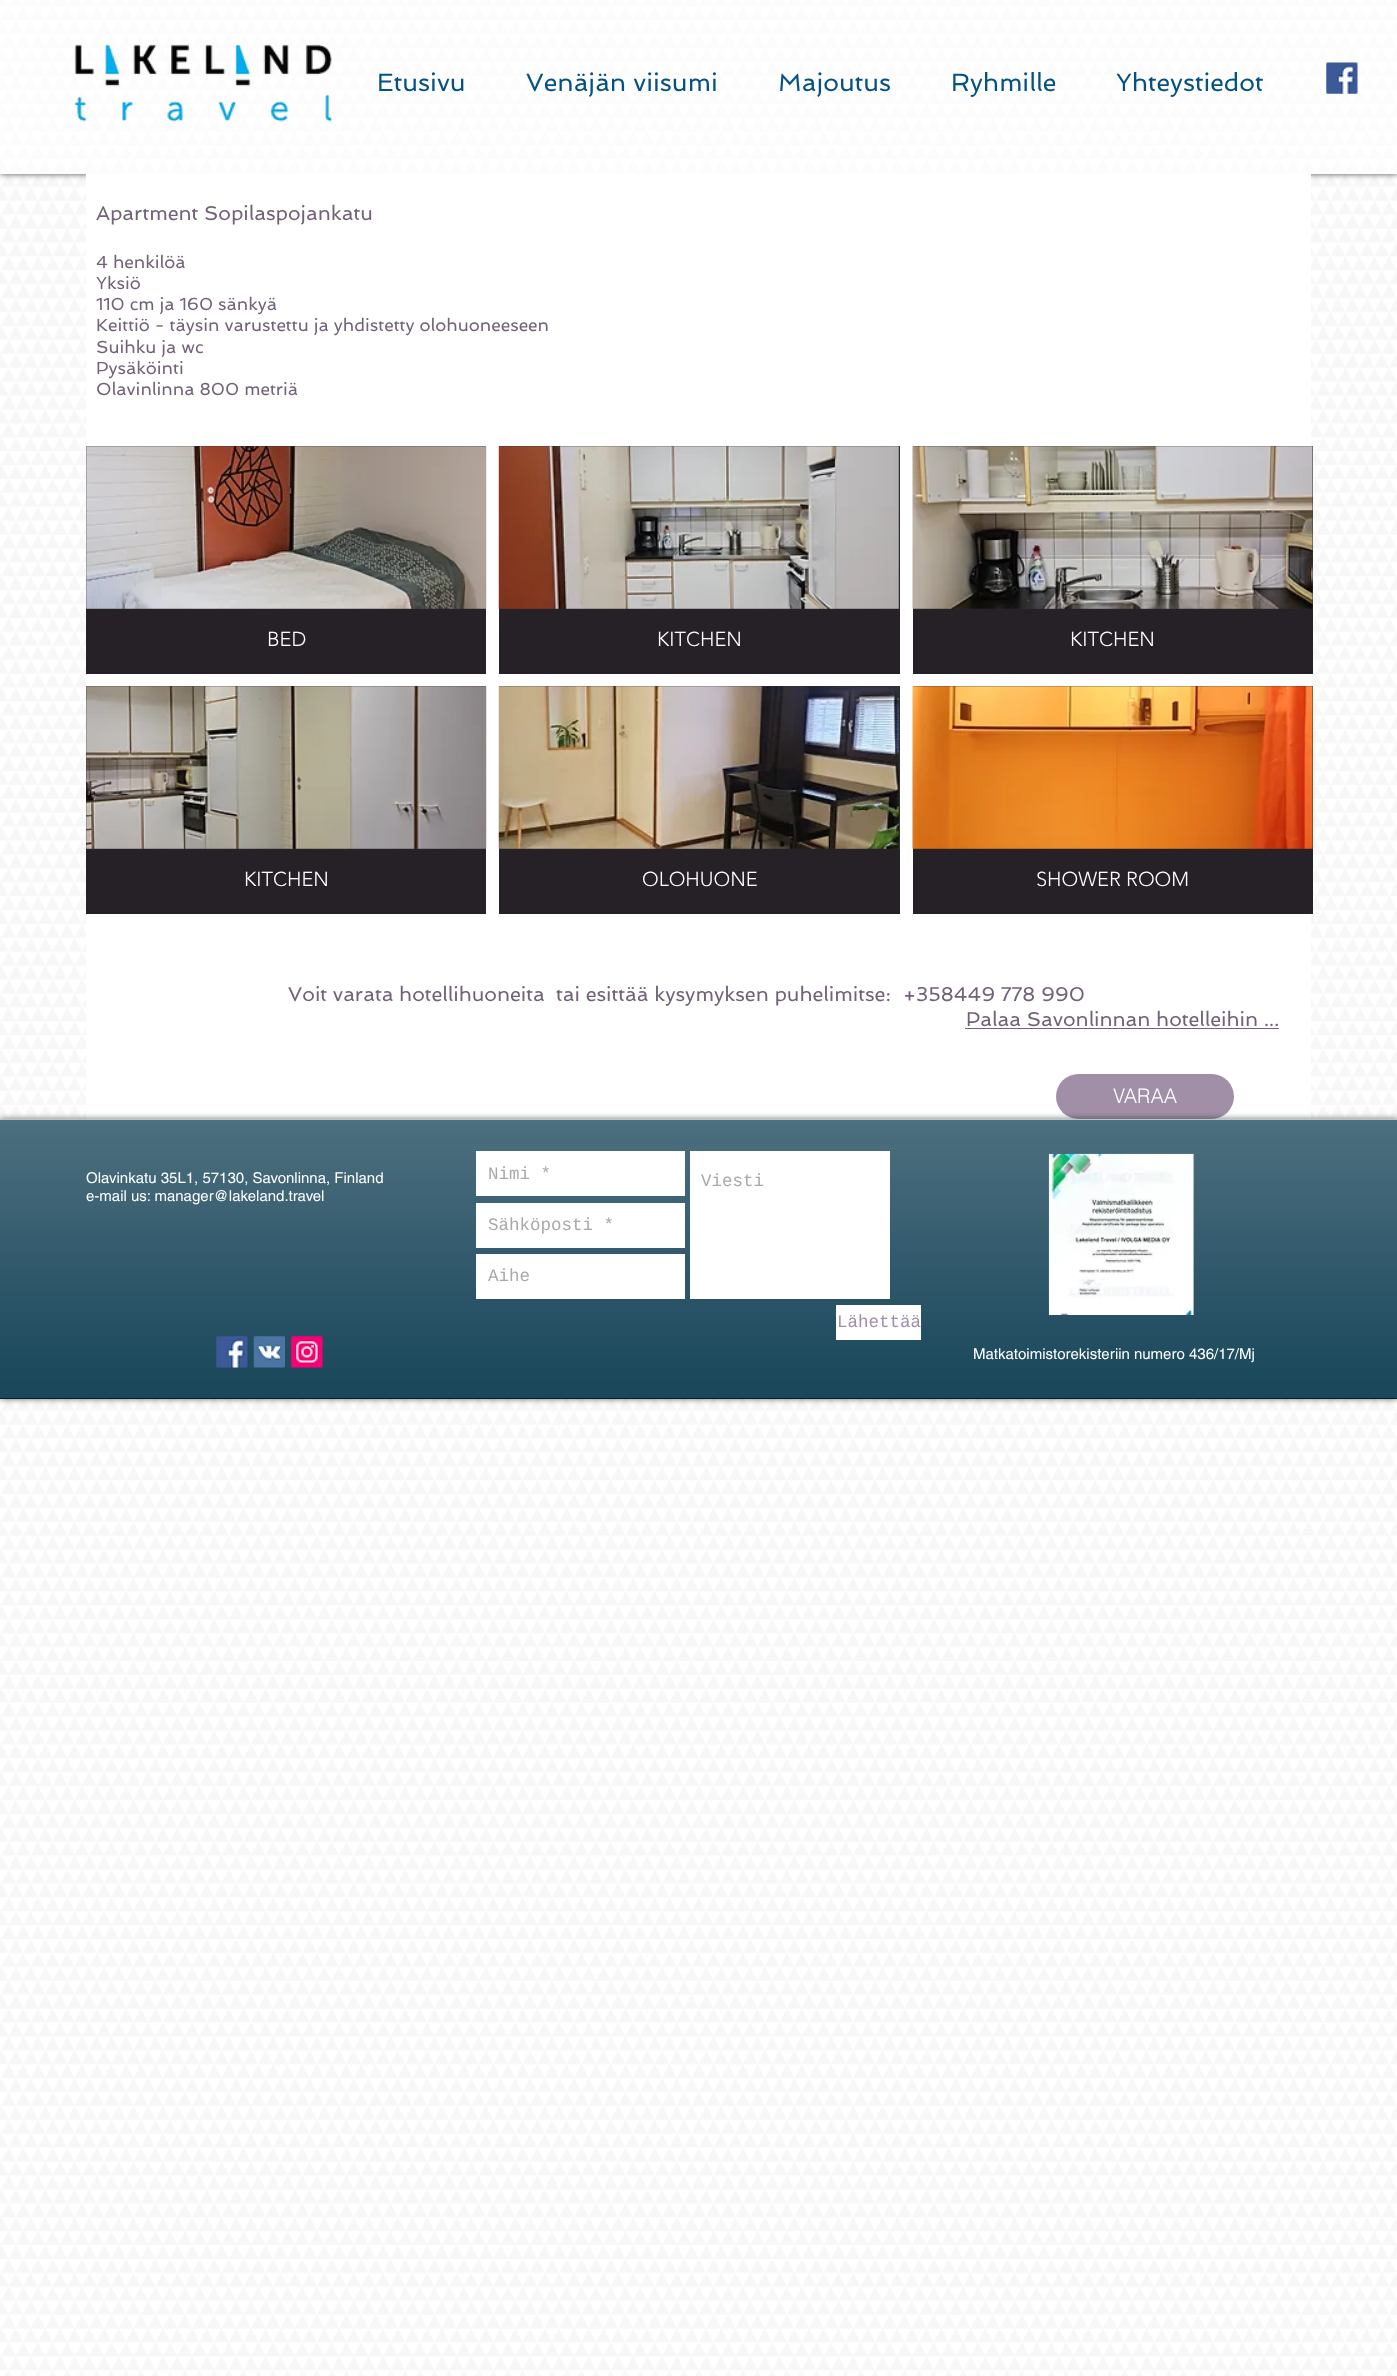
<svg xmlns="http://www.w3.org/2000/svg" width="1397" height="2376">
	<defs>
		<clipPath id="clip1"><path d="M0 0H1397V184H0ZM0 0H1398V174H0Z" clip-rule="evenodd" /></clipPath>
	</defs>
	<rect width="100%" height="100%" fill="#FFFFFF" />
	<image x="0" y="0" width="1397" height="2376" href="assets/img1.png" />
	<g clip-path="url(#clip1)">
		<rect x="0" y="0" width="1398" height="174" fill="#000000" fill-opacity="0.7" filter="blur(3px)" />
	</g>
	<rect x="0" y="0" width="1397" height="174" fill="#FFFFFF" fill-opacity="0.6" />
	<image x="74" y="44" width="259" height="78" href="assets/img2.png" />
	<g font-family="Spinnaker" font-size="25" fill="#045184">
		<text x="377" y="91">Etusivu</text>
		<text x="526" y="91">Venäjän viisumi</text>
		<text x="778" y="91">Majoutus</text>
		<text x="951" y="91">Ryhmille</text>
		<text x="1116" y="91">Yhteystiedot</text>
	</g>
	<image x="1326" y="62" width="32" height="32" href="assets/img3.png" />
	<rect x="86" y="174" width="1225" height="945" fill="#FFFFFF" />
	<text x="96" y="220" font-family="Spinnaker" font-size="20" fill="#726277">Apartment Sopilaspojankatu</text>
	<g font-family="Spinnaker" font-size="17.5" fill="#726277">
		<text x="96" y="268">4 henkilöä</text>
		<text x="96" y="289">Yksiö</text>
		<text x="96" y="310">110 cm ja 160 sänkyä</text>
		<text x="96" y="331">Keittiö - täysin varustettu ja yhdistetty olohuoneeseen</text>
		<text x="96" y="353">Suihku ja wc</text>
		<text x="96" y="374">Pysäköinti</text>
		<text x="96" y="395">Olavinlinna 800 metriä</text>
	</g>
	<rect x="86" y="446" width="400" height="163" fill="#2F2E2E" />
	<image x="86" y="446" width="401" height="163" href="assets/img4.png" />
	<rect x="86" y="609" width="400" height="65" fill="#262027" />
	<text x="267" y="646" font-family="'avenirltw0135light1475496'" font-size="20" font-weight="300" fill="#FFFFFF">BED</text>
	<rect x="499" y="446" width="401" height="163" fill="#2F2E2E" />
	<image x="498" y="446" width="401" height="163" href="assets/img5.png" />
	<rect x="499" y="609" width="401" height="65" fill="#262027" />
	<text x="657" y="646" font-family="'avenirltw0135light1475496'" font-size="20" font-weight="300" fill="#FFFFFF">KITCHEN</text>
	<rect x="913" y="446" width="400" height="163" fill="#2F2E2E" />
	<image x="912" y="446" width="401" height="163" href="assets/img6.png" />
	<rect x="913" y="609" width="400" height="65" fill="#262027" />
	<text x="1070" y="646" font-family="'avenirltw0135light1475496'" font-size="20" font-weight="300" fill="#FFFFFF">KITCHEN</text>
	<rect x="86" y="686" width="400" height="163" fill="#2F2E2E" />
	<image x="86" y="686" width="401" height="163" href="assets/img7.png" />
	<rect x="86" y="849" width="400" height="65" fill="#262027" />
	<text x="244" y="886" font-family="'avenirltw0135light1475496'" font-size="20" font-weight="300" fill="#FFFFFF">KITCHEN</text>
	<rect x="499" y="686" width="401" height="163" fill="#2F2E2E" />
	<image x="498" y="686" width="401" height="163" href="assets/img8.png" />
	<rect x="499" y="849" width="401" height="65" fill="#262027" />
	<text x="642" y="886" font-family="'avenirltw0135light1475496'" font-size="20" font-weight="300" fill="#FFFFFF">OLOHUONE</text>
	<rect x="913" y="686" width="400" height="163" fill="#2F2E2E" />
	<image x="912" y="686" width="401" height="163" href="assets/img9.png" />
	<rect x="913" y="849" width="400" height="65" fill="#262027" />
	<text x="1036" y="886" font-family="'avenirltw0135light1475496'" font-size="20" font-weight="300" fill="#FFFFFF">SHOWER ROOM</text>
	<g font-family="Spinnaker" font-size="20" fill="#726277">
		<text x="288" y="1001">Voit varata hotellihuoneita</text>
		<text x="556" y="1001">tai esittää kysymyksen puhelimitse:</text>
		<text x="903" y="1001">+358449 778 990</text>
		<text x="966" y="1026">Palaa Savonlinnan hotelleihin ...</text>
	</g>
	<rect x="965" y="1028" width="314" height="1" fill="#726277" />
	<rect x="1056" y="1074" width="178" height="45" rx="22.5" fill="#A08FA6" />
	<text x="1113" y="1103" font-family="helvetica" font-size="20" font-weight="300" fill="#FFFFFF">VARAA</text>
	<rect x="0" y="1119" width="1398" height="280" fill="#000000" fill-opacity="0.6" filter="blur(3px)" />
	<rect x="0" y="1120" width="1397" height="278" fill="#103F54" />
	<image x="0" y="1118" width="1397" height="280" href="assets/img10.png" />
	<rect x="0" y="1398" width="1397" height="1" fill="#091B23" />
	<rect x="0" y="1119" width="1397" height="1" fill="#B8C6CC" />
	<g font-family="helvetica" font-size="15" fill="#FFFFFF">
		<text x="86" y="1183">Olavinkatu 35L1, 57130, Savonlinna, Finland</text>
		<text x="86" y="1201">e-mail us: manager@lakeland.travel</text>
	</g>
	<rect x="476" y="1151" width="209" height="45" fill="#FFFFFF" />
	<text x="488" y="1179" font-family="Liberation Mono" font-size="17.5" fill="#A9A9A9">Nimi *</text>
	<rect x="690" y="1151" width="200" height="148" fill="#FFFFFF" />
	<text x="701" y="1186" font-family="Liberation Mono" font-size="17.5" fill="#A9A9A9">Viesti</text>
	<rect x="476" y="1203" width="209" height="45" fill="#FFFFFF" />
	<text x="488" y="1230" font-family="Liberation Mono" font-size="17.5" fill="#A9A9A9">Sähköposti *</text>
	<rect x="476" y="1254" width="209" height="45" fill="#FFFFFF" />
	<text x="488" y="1281" font-family="Liberation Mono" font-size="17.5" fill="#A9A9A9">Aihe</text>
	<rect x="836" y="1305" width="85" height="35" fill="#FFFFFF" />
	<text x="837" y="1327" font-family="Liberation Mono" font-size="17.5" fill="#A08FA6">Lähettää</text>
	<image x="1048" y="1153" width="146" height="162" href="assets/img11.png" />
	<image x="216" y="1336" width="32" height="32" href="assets/img12.png" />
	<image x="253" y="1336" width="32" height="32" href="assets/img13.png" />
	<image x="291" y="1336" width="32" height="32" href="assets/img14.png" />
	<text x="973" y="1359" font-family="helvetica" font-size="15" fill="#FFFFFF">Matkatoimistorekisteriin numero 436/17/Mj</text>
</svg>
